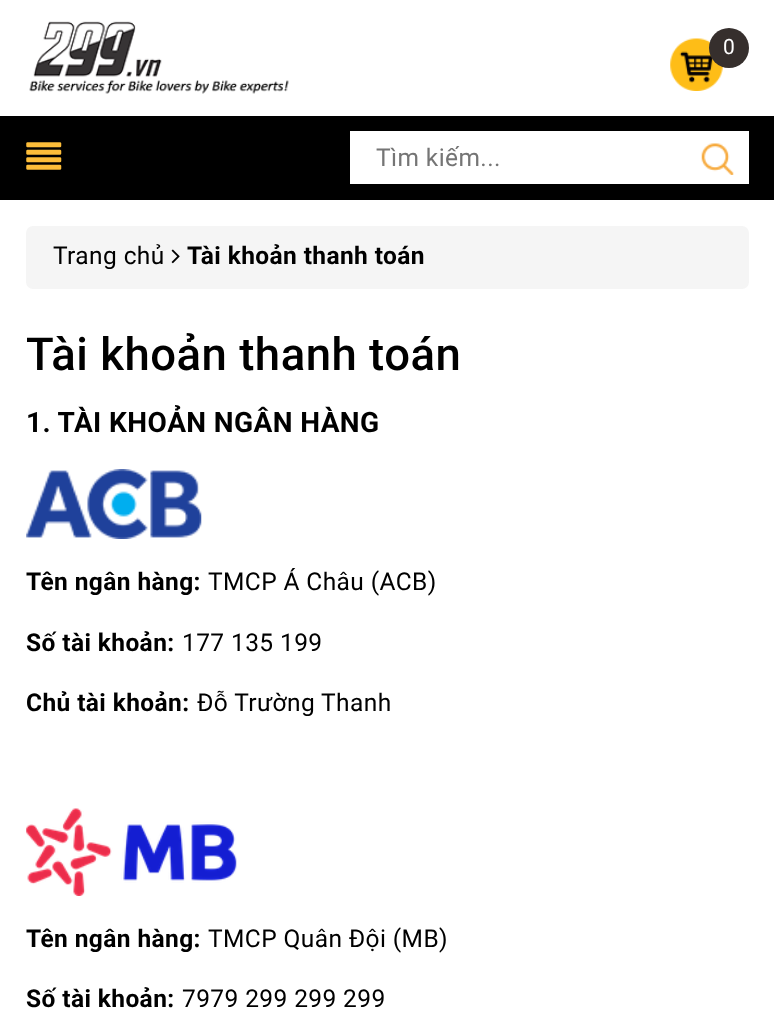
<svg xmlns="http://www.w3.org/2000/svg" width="774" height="1010">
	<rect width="100%" height="100%" fill="#FFFFFF" />
	<image x="29" y="21" width="260" height="73" href="assets/img1.png" />
	<image x="670" y="38" width="53" height="53" href="assets/img2.png" />
	<circle cx="729" cy="48" r="20" fill="#362F2D" />
	<text x="723" y="54" font-family="Roboto" font-size="21" letter-spacing="0.4" fill="#FFFFFF">0</text>
	<rect x="0" y="116" width="774" height="84" fill="#000000" />
	<image x="26" y="142" width="36" height="28" href="assets/img3.png" />
	<rect x="350" y="131" width="399" height="53" fill="#FFFFFF" />
	<text x="376" y="166" font-family="Roboto" font-size="24.5" letter-spacing="0.4" fill="#757575">Tìm kiếm...</text>
	<image x="701" y="143" width="33" height="32" href="assets/img4.png" />
	<rect x="26" y="226" width="723" height="63" rx="7" fill="#F5F5F5" />
	<text x="53" y="264" font-family="Roboto" font-size="24.5" letter-spacing="0.4" fill="#000000">Trang chủ</text>
	<image x="171" y="249" width="9" height="15" href="assets/img5.png" />
	<text x="187" y="264" font-family="Roboto" font-size="24.5" font-weight="700" letter-spacing="0.4" fill="#000000">Tài khoản thanh toán</text>
	<text x="26" y="370" font-family="Roboto" font-size="45.5" font-weight="500" letter-spacing="0.5" fill="#000000">Tài khoản thanh toán</text>
	<text x="26" y="432" font-family="Roboto" font-size="28" font-weight="700" letter-spacing="0.4" fill="#000000">1. TÀI KHOẢN NGÂN HÀNG</text>
	<image x="26" y="469" width="176" height="70" href="assets/img6.png" />
	<text x="26" y="590" font-family="Roboto" font-size="24.5" font-weight="700" letter-spacing="0.4" fill="#000000">Tên ngân hàng:</text>
	<text x="208" y="590" font-family="Roboto" font-size="24.5" letter-spacing="0.4" fill="#000000">TMCP Á Châu (ACB)</text>
	<text x="26" y="651" font-family="Roboto" font-size="24.5" font-weight="700" letter-spacing="0.4" fill="#000000">Số tài khoản:</text>
	<text x="182" y="651" font-family="Roboto" font-size="24.5" letter-spacing="0.4" fill="#000000">177 135 199</text>
	<text x="26" y="711" font-family="Roboto" font-size="24.5" font-weight="700" letter-spacing="0.4" fill="#000000">Chủ tài khoản:</text>
	<text x="197" y="711" font-family="Roboto" font-size="24.5" letter-spacing="0.4" fill="#000000">Đỗ Trường Thanh</text>
	<image x="26" y="808" width="211" height="88" href="assets/img7.png" />
	<text x="26" y="947" font-family="Roboto" font-size="24.5" font-weight="700" letter-spacing="0.4" fill="#000000">Tên ngân hàng:</text>
	<text x="208" y="947" font-family="Roboto" font-size="24.5" letter-spacing="0.4" fill="#000000">TMCP Quân Đội (MB)</text>
	<text x="26" y="1007" font-family="Roboto" font-size="24.5" font-weight="700" letter-spacing="0.4" fill="#000000">Số tài khoản:</text>
	<text x="182" y="1007" font-family="Roboto" font-size="24.5" letter-spacing="0.4" fill="#000000">7979 299 299 299</text>
</svg>
